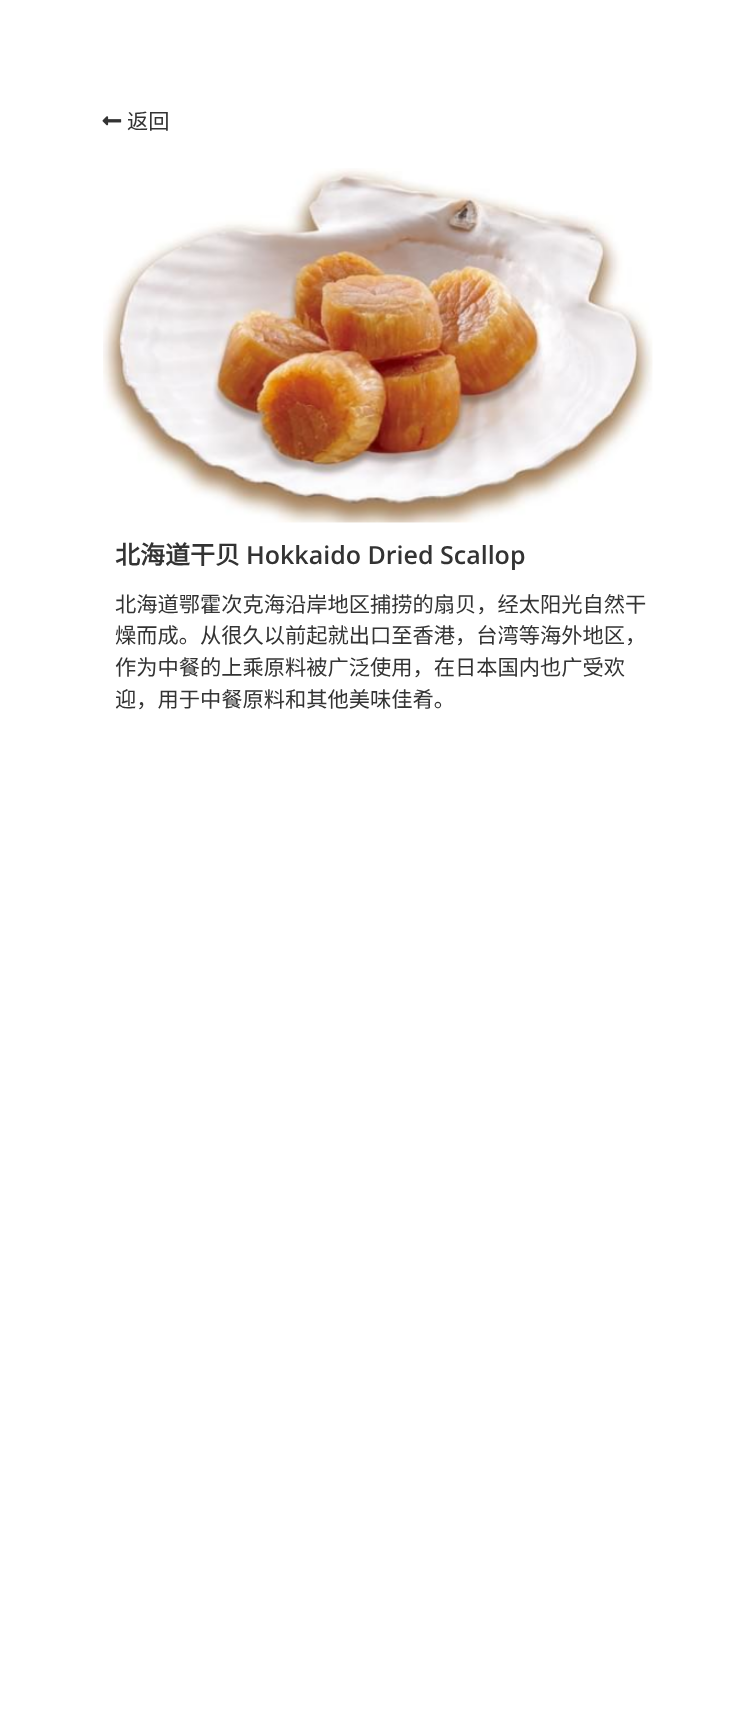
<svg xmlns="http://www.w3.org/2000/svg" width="755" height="1713">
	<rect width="100%" height="100%" fill="#FFFFFF" />
	<image x="102" y="116" width="20" height="10" href="assets/img1.png" />
	<text x="127" y="129" font-family="Noto Sans CJK SC" font-size="21.25" fill="#333333">返回</text>
	<image x="103" y="168" width="550" height="355" href="assets/img2.png" />
	<text x="115" y="564" font-family="Noto Sans CJK SC" font-size="25" font-weight="700" fill="#333333">北海道干贝</text>
	<text x="246" y="564" font-family="Open Sans" font-size="25" font-weight="600" fill="#333333">Hokkaido Dried Scallop</text>
	<g font-family="Noto Sans CJK SC" font-size="21.25" fill="#333333">
		<text x="115" y="612">北海道鄂霍次克海沿岸地区捕捞的扇贝，经太阳光自然干</text>
		<text x="115" y="643">燥而成。从很久以前起就出口至香港，台湾等海外地区，</text>
		<text x="115" y="675">作为中餐的上乘原料被广泛使用，在日本国内也广受欢</text>
		<text x="115" y="707">迎，用于中餐原料和其他美味佳肴。</text>
	</g>
</svg>
